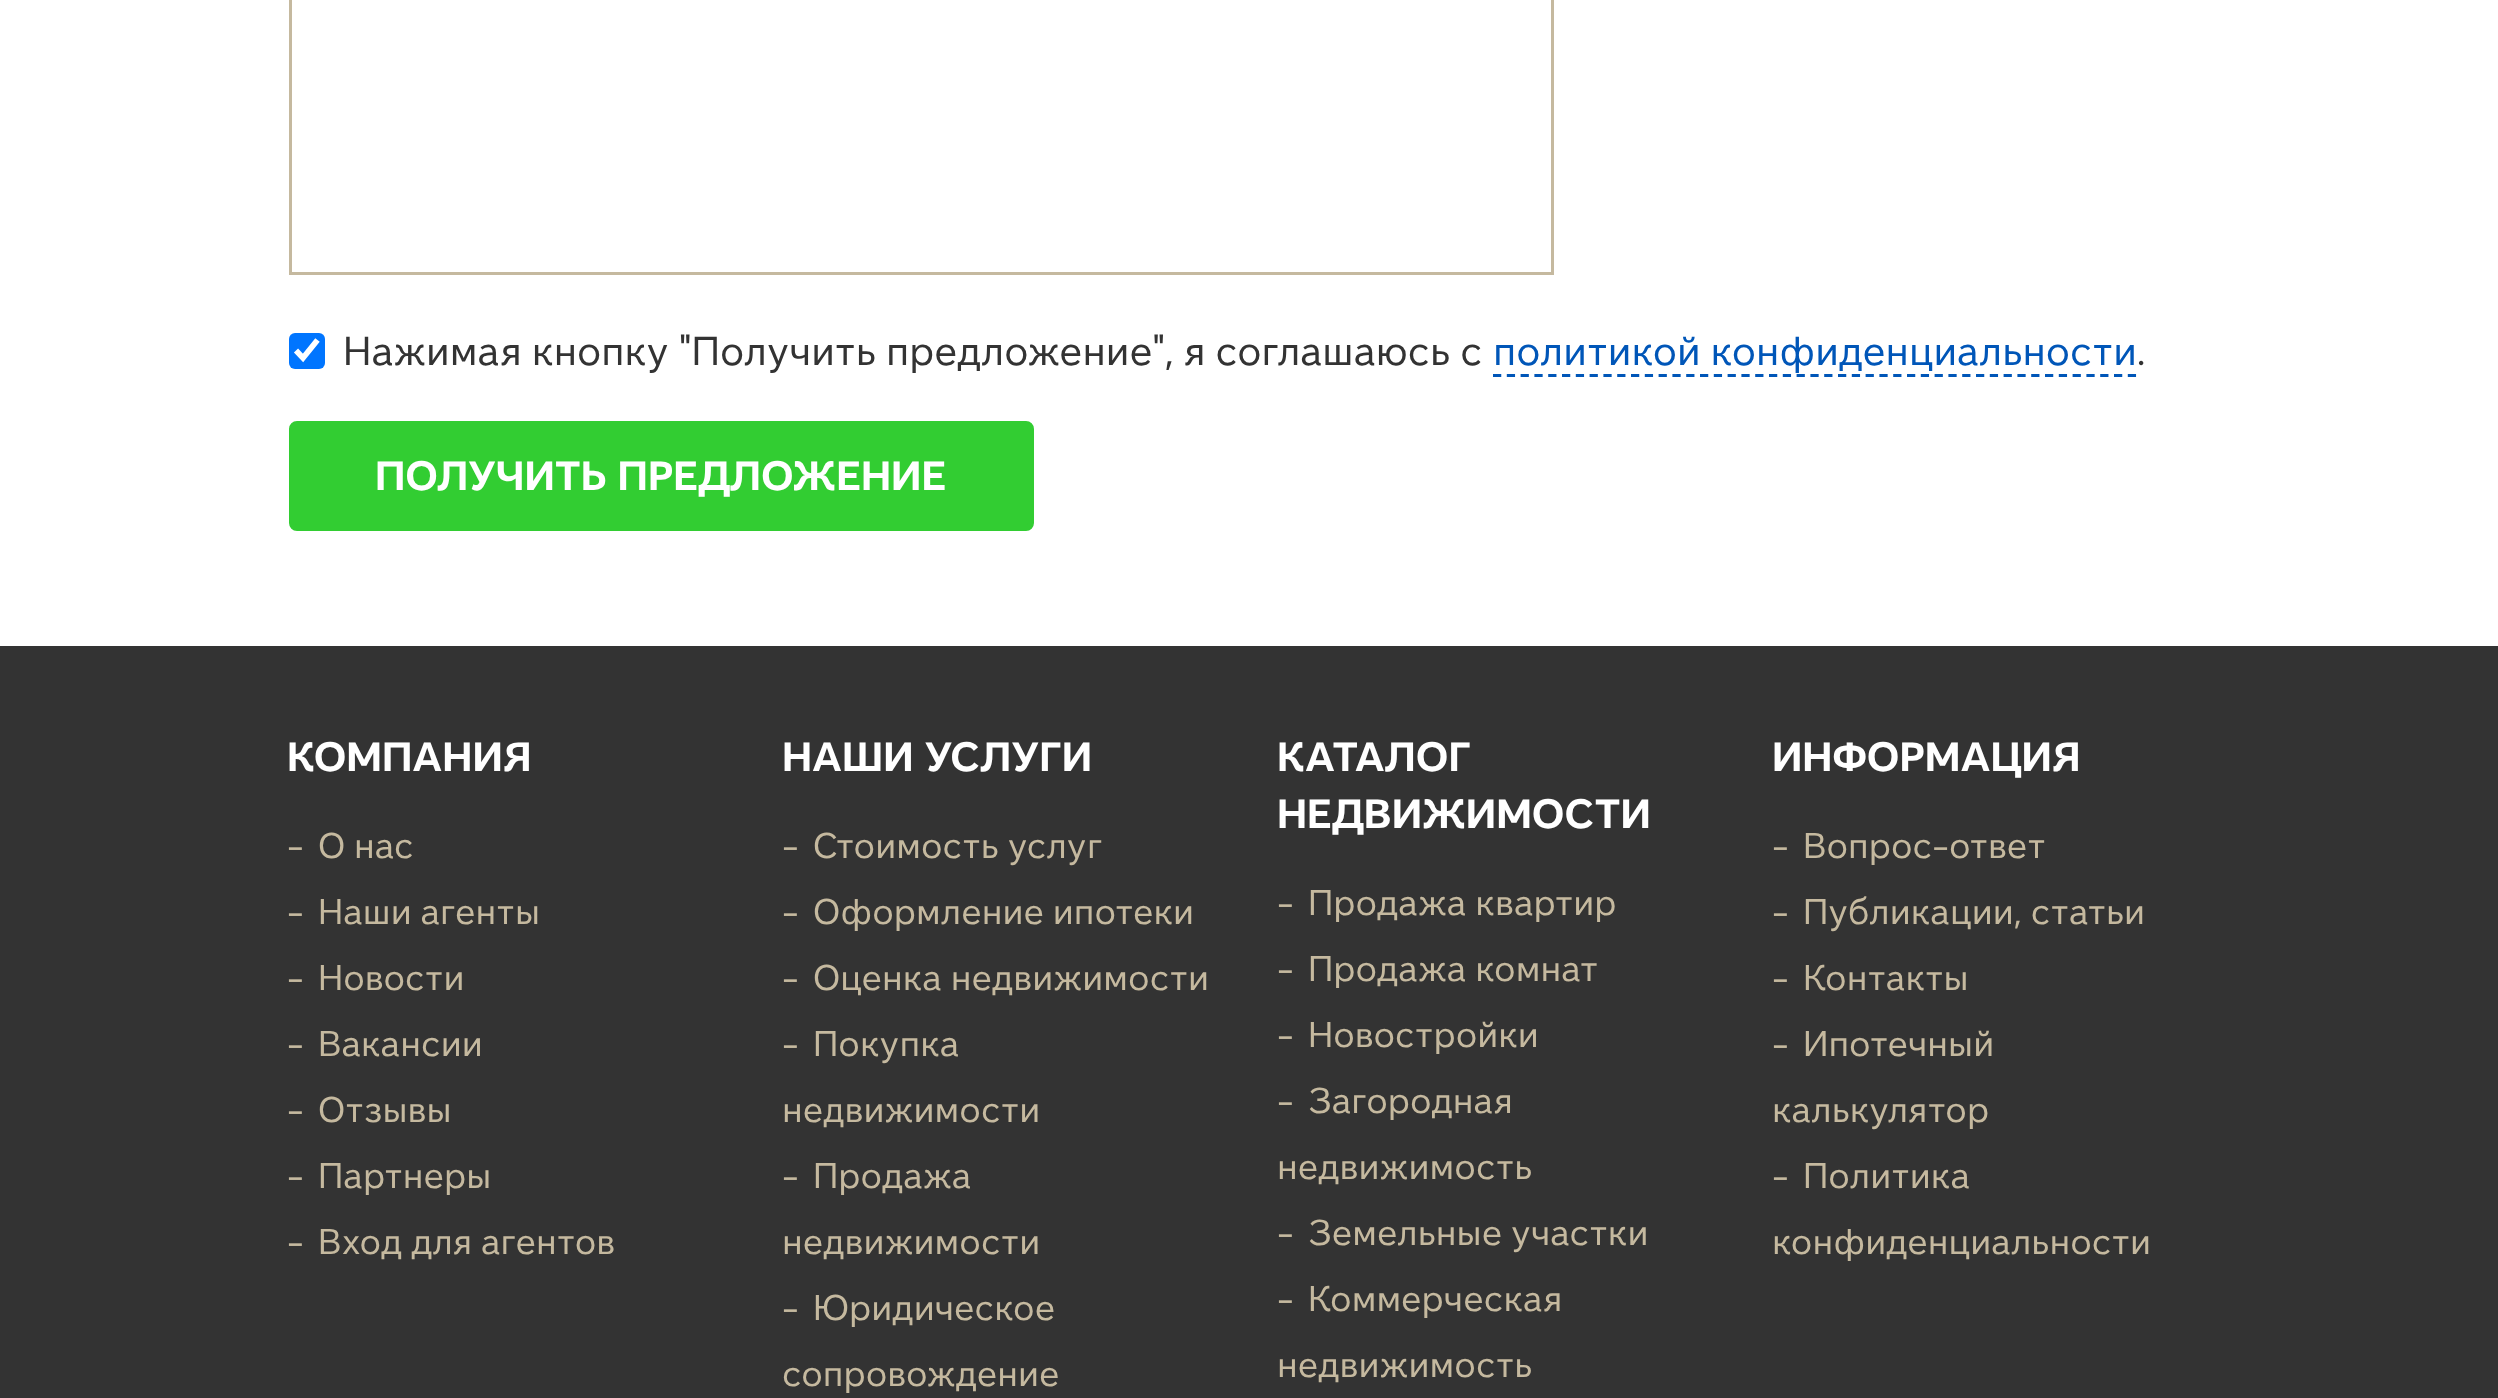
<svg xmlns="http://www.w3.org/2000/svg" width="2498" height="1398">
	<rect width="100%" height="100%" fill="#FFFFFF" />
	<rect x="290.5" y="-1.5" width="1262" height="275" fill="none" stroke="#C5B99F" stroke-width="3" />
	<rect x="289" y="333" width="36" height="36" rx="6" fill="#0075FF" />
	<path d="M296 350.5L303 358L317.5 340" fill="none" stroke="#FFFFFF" stroke-width="5.7" />
	<text x="343" y="365" font-family="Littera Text" font-size="43.3" fill="#333333">Нажимая кнопку "Получить предложение", я соглашаюсь с</text>
	<text x="1493" y="365" font-family="Littera Text" font-size="43.3" fill="#0056B8">политикой конфиденциальности</text>
	<text x="2137" y="365" font-family="Littera Text" font-size="43.3" fill="#333333">.</text>
	<path d="M1493 375.5H2137" fill="none" stroke="#0056B8" stroke-width="2.8" stroke-dasharray="8.25 5.55" />
	<rect x="292" y="424" width="739" height="104" rx="5" fill="#32CD32" stroke="#32CD32" stroke-width="6" />
	<text x="375" y="490" font-family="Littera Text" font-size="44" font-weight="700" fill="#FFFFFF">ПОЛУЧИТЬ ПРЕДЛОЖЕНИЕ</text>
	<rect x="0" y="646" width="2498" height="752" fill="#333333" />
	<text x="287" y="771" font-family="Littera Text" font-size="44" font-weight="700" fill="#FFFFFF">КОМПАНИЯ</text>
	<g font-family="Littera Text" font-size="38.5" fill="#C5B99F">
		<text x="287" y="858">-</text>
		<text x="318" y="858">О нас</text>
		<text x="287" y="924">-</text>
		<text x="318" y="924">Наши агенты</text>
		<text x="287" y="990">-</text>
		<text x="318" y="990">Новости</text>
		<text x="287" y="1056">-</text>
		<text x="318" y="1056">Вакансии</text>
		<text x="287" y="1122">-</text>
		<text x="318" y="1122">Отзывы</text>
		<text x="287" y="1188">-</text>
		<text x="318" y="1188">Партнеры</text>
		<text x="287" y="1254">-</text>
		<text x="318" y="1254">Вход для агентов</text>
	</g>
	<text x="782" y="771" font-family="Littera Text" font-size="44" font-weight="700" fill="#FFFFFF">НАШИ УСЛУГИ</text>
	<g font-family="Littera Text" font-size="38.5" fill="#C5B99F">
		<text x="782" y="858">-</text>
		<text x="813" y="858">Стоимость услуг</text>
		<text x="782" y="924">-</text>
		<text x="813" y="924">Оформление ипотеки</text>
		<text x="782" y="990">-</text>
		<text x="813" y="990">Оценка недвижимости</text>
		<text x="782" y="1056">-</text>
		<text x="813" y="1056">Покупка</text>
		<text x="782" y="1122">недвижимости</text>
		<text x="782" y="1188">-</text>
		<text x="813" y="1188">Продажа</text>
		<text x="782" y="1254">недвижимости</text>
		<text x="782" y="1320">-</text>
		<text x="813" y="1320">Юридическое</text>
		<text x="782" y="1386">сопровождение</text>
	</g>
	<g font-family="Littera Text" font-size="44" font-weight="700" fill="#FFFFFF">
		<text x="1277" y="771">КАТАЛОГ</text>
		<text x="1277" y="828">НЕДВИЖИМОСТИ</text>
	</g>
	<g font-family="Littera Text" font-size="38.5" fill="#C5B99F">
		<text x="1277" y="915">-</text>
		<text x="1308" y="915">Продажа квартир</text>
		<text x="1277" y="981">-</text>
		<text x="1308" y="981">Продажа комнат</text>
		<text x="1277" y="1047">-</text>
		<text x="1308" y="1047">Новостройки</text>
		<text x="1277" y="1113">-</text>
		<text x="1308" y="1113">Загородная</text>
		<text x="1277" y="1179">недвижимость</text>
		<text x="1277" y="1245">-</text>
		<text x="1308" y="1245">Земельные участки</text>
		<text x="1277" y="1311">-</text>
		<text x="1308" y="1311">Коммерческая</text>
		<text x="1277" y="1377">недвижимость</text>
	</g>
	<text x="1772" y="771" font-family="Littera Text" font-size="44" font-weight="700" fill="#FFFFFF">ИНФОРМАЦИЯ</text>
	<g font-family="Littera Text" font-size="38.5" fill="#C5B99F">
		<text x="1772" y="858">-</text>
		<text x="1803" y="858">Вопрос-ответ</text>
		<text x="1772" y="924">-</text>
		<text x="1803" y="924">Публикации, статьи</text>
		<text x="1772" y="990">-</text>
		<text x="1803" y="990">Контакты</text>
		<text x="1772" y="1056">-</text>
		<text x="1803" y="1056">Ипотечный</text>
		<text x="1772" y="1122">калькулятор</text>
		<text x="1772" y="1188">-</text>
		<text x="1803" y="1188">Политика</text>
		<text x="1772" y="1254">конфиденциальности</text>
	</g>
</svg>
